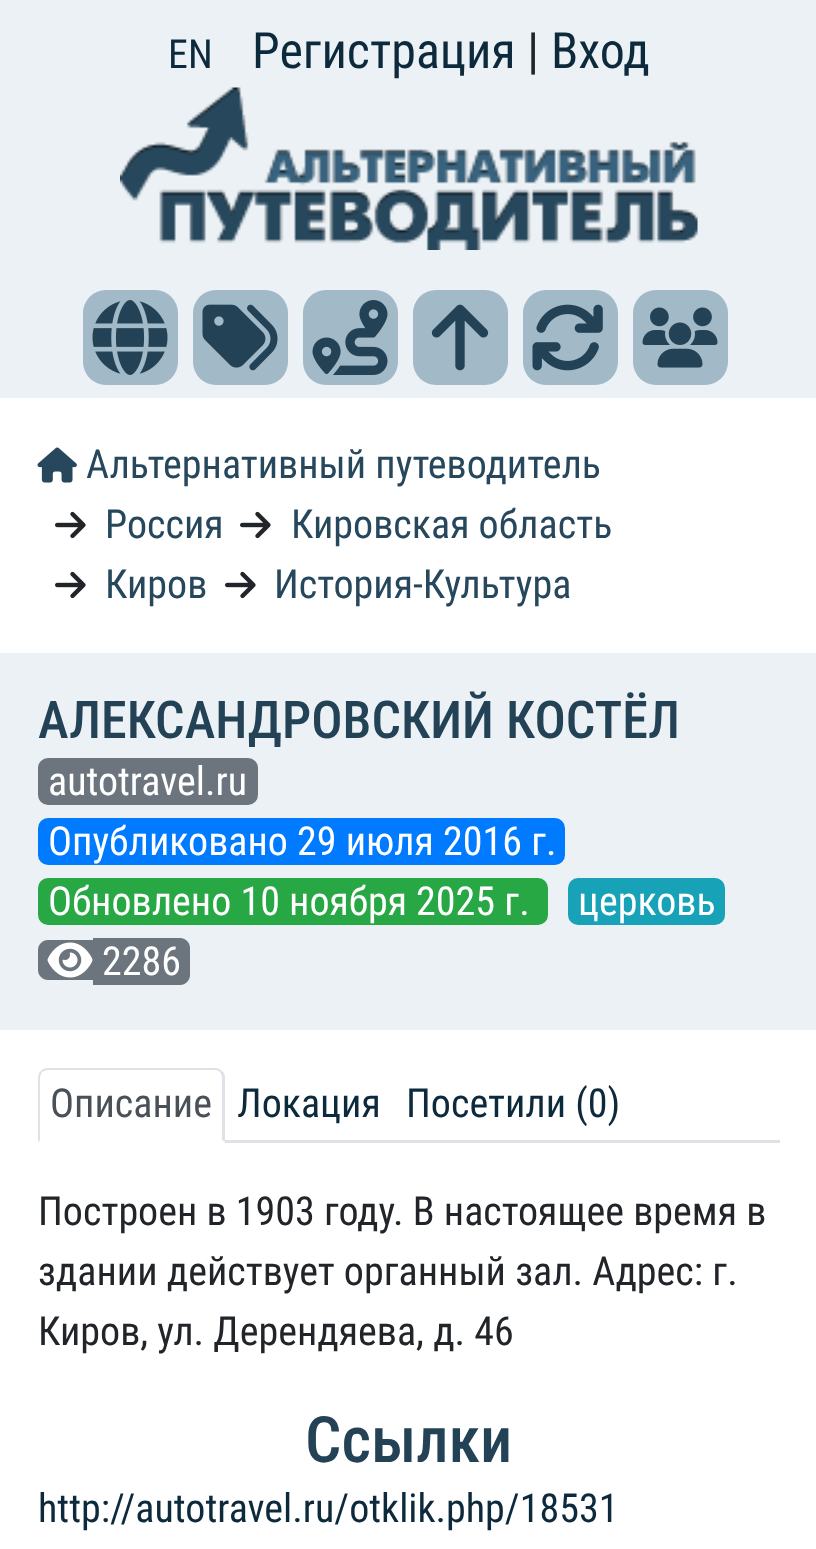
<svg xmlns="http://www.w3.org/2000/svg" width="816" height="1549">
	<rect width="100%" height="100%" fill="#EBF1F5" />
	<text x="168" y="68" font-family="Roboto Condensed" font-size="40" fill="#0D293C">EN</text>
	<text x="252" y="68" font-family="Roboto Condensed" font-size="50" fill="#0D293C">Регистрация</text>
	<text x="527" y="68" font-family="Roboto Condensed" font-size="50" fill="#212529">|</text>
	<text x="551" y="68" font-family="Roboto Condensed" font-size="50" fill="#0D293C">Вход</text>
	<image x="120" y="87" width="578" height="163" href="assets/img1.png" />
	<rect x="83" y="290" width="95" height="95" rx="23" fill="#A2B9C8" />
	<image x="92" y="300" width="76" height="75" href="assets/img2.png" />
	<rect x="193" y="290" width="95" height="95" rx="23" fill="#A2B9C8" />
	<image x="202" y="304" width="76" height="67" href="assets/img3.png" />
	<rect x="303" y="290" width="95" height="95" rx="23" fill="#A2B9C8" />
	<image x="312" y="300" width="76" height="75" href="assets/img4.png" />
	<rect x="413" y="290" width="95" height="95" rx="23" fill="#A2B9C8" />
	<image x="431" y="304" width="58" height="67" href="assets/img5.png" />
	<rect x="523" y="290" width="95" height="95" rx="23" fill="#A2B9C8" />
	<image x="532" y="304" width="71" height="67" href="assets/img6.png" />
	<rect x="633" y="290" width="95" height="95" rx="23" fill="#A2B9C8" />
	<image x="642" y="307" width="76" height="61" href="assets/img7.png" />
	<rect x="0" y="398" width="816" height="255" fill="#FFFFFF" />
	<image x="37" y="447" width="40" height="36" href="assets/img8.png" />
	<text x="86" y="478" font-family="Roboto Condensed" font-size="40" fill="#27475C">Альтернативный путеводитель</text>
	<image x="55" y="511" width="31" height="28" href="assets/img9.png" />
	<text x="105" y="538" font-family="Roboto Condensed" font-size="40" fill="#27475C">Россия</text>
	<image x="240" y="511" width="31" height="28" href="assets/img9.png" />
	<text x="291" y="538" font-family="Roboto Condensed" font-size="40" fill="#27475C">Кировская область</text>
	<image x="55" y="571" width="31" height="28" href="assets/img9.png" />
	<text x="105" y="598" font-family="Roboto Condensed" font-size="40" fill="#27475C">Киров</text>
	<image x="225" y="571" width="31" height="28" href="assets/img9.png" />
	<text x="274" y="598" font-family="Roboto Condensed" font-size="40" fill="#27475C">История-Культура</text>
	<text x="38" y="738" font-family="Roboto Condensed" font-size="52" font-weight="500" fill="#244255">АЛЕКСАНДРОВСКИЙ КОСТЁЛ</text>
	<rect x="38" y="758" width="220" height="47" rx="10" fill="#6C757D" />
	<text x="48" y="795" font-family="Roboto Condensed" font-size="40" fill="#FFFFFF">autotravel.ru</text>
	<rect x="38" y="818" width="527" height="47" rx="10" fill="#007BFF" />
	<text x="48" y="855" font-family="Roboto Condensed" font-size="40" fill="#FFFFFF">Опубликовано 29 июля 2016 г.</text>
	<rect x="38" y="878" width="510" height="47" rx="10" fill="#28A745" />
	<text x="48" y="915" font-family="Roboto Condensed" font-size="40" fill="#FFFFFF">Обновлено 10 ноября 2025 г.</text>
	<rect x="568" y="878" width="157" height="47" rx="10" fill="#17A2B8" />
	<text x="578" y="915" font-family="Roboto Condensed" font-size="40" fill="#FFFFFF">церковь</text>
	<path d="M48 940H93V980H48C42.5 980 38 975.5 38 970V950C38 944.5 42.5 940 48 940Z" fill="#6C757D" />
	<path d="M93 938H180C185.5 938 190 942.5 190 948V975C190 980.5 185.5 985 180 985H93Z" fill="#6C757D" />
	<image x="47" y="942" width="46" height="36" href="assets/img10.png" />
	<text x="102" y="975" font-family="Roboto Condensed" font-size="40" fill="#FFFFFF">2286</text>
	<rect x="0" y="1030" width="816" height="519" fill="#FFFFFF" />
	<rect x="225" y="1140" width="555" height="3" fill="#DEE2E6" />
	<path d="M48 1068C45 1068 42 1069 41 1071L42 1072C44 1071 46 1070 48 1070H215C217 1070 219 1071 220 1072L222 1071C220 1069 218 1068 215 1068Z" fill="#DEE2E6" />
	<path d="M222 1071C224 1072 225 1075 225 1078V1142L222 1140V1078C222 1076 221 1074 220 1072Z" fill="#DEE2E6" />
	<path d="M224 1142H38L40 1140H222Z" fill="#FFFFFF" />
	<path d="M41 1071C39 1072 38 1075 38 1078V1142L40 1140V1078C40 1076 41 1074 42 1072Z" fill="#DEE2E6" />
	<text x="50" y="1117" font-family="Roboto Condensed" font-size="40" fill="#495057">Описание</text>
	<g font-family="Roboto Condensed" font-size="40" fill="#0D293C">
		<text x="237" y="1117">Локация</text>
		<text x="406" y="1117">Посетили (0)</text>
	</g>
	<g font-family="Roboto Condensed" font-size="40" fill="#212529">
		<text x="38" y="1225">Построен в 1903 году. В настоящее время в</text>
		<text x="38" y="1285">здании действует органный зал. Адрес: г.</text>
		<text x="38" y="1345">Киров, ул. Дерендяева, д. 46</text>
	</g>
	<text x="305" y="1462" font-family="Roboto Condensed" font-size="64" font-weight="500" fill="#244255">Ссылки</text>
	<text x="38" y="1522" font-family="Roboto Condensed" font-size="40" fill="#0D293C">http://autotravel.ru/otklik.php/18531</text>
</svg>
